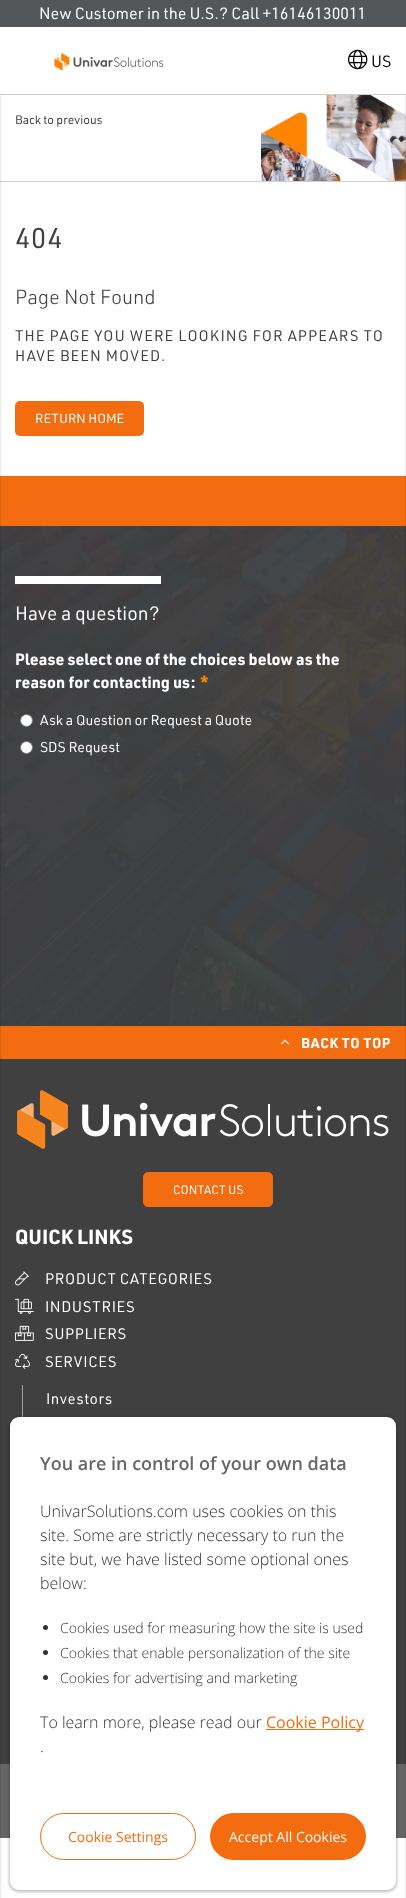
<svg xmlns="http://www.w3.org/2000/svg" width="406" height="1898">
	<rect width="100%" height="100%" fill="#FFFFFF" />
	<image x="261" y="95" width="145" height="86" href="assets/img3.png" />
	<rect x="0" y="181" width="406" height="1" fill="#CFCFCF" />
	<image x="0" y="526" width="406" height="500" href="assets/img4.png" />
	<rect x="0" y="476" width="406" height="50" fill="#F46C10" />
	<rect x="0" y="1026" width="406" height="33" fill="#F46C10" />
	<rect x="0" y="1059" width="406" height="705" fill="#404040" />
	<rect x="0" y="1764" width="406" height="74" fill="#666666" />
	<rect x="406" y="2" width="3" height="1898" fill="#000000" fill-opacity="0.24" filter="blur(1px)" />
	<rect x="404" y="27" width="2" height="67" fill="#FFFFFF" />
	<rect x="-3" y="95" width="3" height="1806" fill="#000000" fill-opacity="0.24" filter="blur(1px)" />
	<rect x="0" y="94" width="406" height="1" fill="#CFCFCF" />
	<rect x="0" y="0" width="406" height="27" fill="#54575A" />
	<text x="39" y="19" font-family="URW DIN" font-size="16" fill="#FFFFFF">New Customer in the U.S.? Call +16146130011</text>
	<image x="54" y="53" width="110" height="18" href="assets/img1.png" />
	<image x="348" y="49" width="20" height="21" href="assets/img2.png" />
	<text x="371" y="67" font-family="URW DIN" font-size="16" fill="#000000">US</text>
	<text x="15" y="124" font-family="URW DIN" font-size="12" fill="#404040">Back to previous</text>
	<text x="15" y="248" font-family="URW DIN" font-size="28" letter-spacing="1" fill="#404040">404</text>
	<text x="15" y="304" font-family="URW DIN" font-size="20" font-weight="300" fill="#404040">Page Not Found</text>
	<g font-family="URW DIN" font-size="15" letter-spacing="1" fill="#404040">
		<text x="15" y="341">THE PAGE YOU WERE LOOKING FOR APPEARS TO</text>
		<text x="15" y="361">HAVE BEEN MOVED.</text>
	</g>
	<rect x="15" y="401" width="129" height="35" rx="5" fill="#F46C10" />
	<text x="35" y="423" font-family="URW DIN" font-size="13" fill="#FFFFFF">RETURN HOME</text>
	<rect x="15" y="576" width="146" height="8" fill="#FFFFFF" />
	<text x="15" y="620" font-family="URW DIN" font-size="19" fill="#FFFFFF">Have a question?</text>
	<g font-family="URW DIN" font-size="16" font-weight="700" fill="#FFFFFF">
		<text x="15" y="665">Please select one of the choices below as the</text>
		<text x="15" y="688">reason for contacting us:</text>
	</g>
	<text x="200" y="688" font-family="URW DIN" font-size="16" font-weight="700" fill="#FF8400">*</text>
	<circle cx="26.5" cy="720.5" r="6" fill="#FFFFFF" stroke="#767676" />
	<text x="40" y="725" font-family="URW DIN" font-size="14" fill="#FFFFFF">Ask a Question or Request a Quote</text>
	<circle cx="26.5" cy="747.5" r="6" fill="#FFFFFF" stroke="#767676" />
	<text x="40" y="752" font-family="URW DIN" font-size="14" fill="#FFFFFF">SDS Request</text>
	<image x="281" y="1039" width="8" height="6" href="assets/img5.png" />
	<text x="301" y="1048" font-family="URW DIN" font-size="14" font-weight="700" letter-spacing="0.5" fill="#FFFFFF">BACK TO TOP</text>
	<image x="17" y="1090" width="372" height="59" href="assets/img6.png" />
	<rect x="143.5" y="1172.5" width="129" height="34" rx="4.5" fill="#F46C10" stroke="#F46C10" />
	<text x="173" y="1194" font-family="URW DIN" font-size="12" fill="#FFFFFF">CONTACT US</text>
	<text x="15" y="1244" font-family="URW DIN" font-size="20" font-weight="700" fill="#FFFFFF">QUICK LINKS</text>
	<image x="15" y="1271" width="14" height="15" href="assets/img7.png" />
	<text x="45" y="1284" font-family="URW DIN" font-size="15" letter-spacing="0.5" fill="#FFFFFF">PRODUCT CATEGORIES</text>
	<image x="15" y="1298" width="19" height="16" href="assets/img8.png" />
	<text x="45" y="1312" font-family="URW DIN" font-size="15" letter-spacing="0.5" fill="#FFFFFF">INDUSTRIES</text>
	<image x="15" y="1325" width="19" height="16" href="assets/img9.png" />
	<text x="45" y="1339" font-family="URW DIN" font-size="15" letter-spacing="0.5" fill="#FFFFFF">SUPPLIERS</text>
	<image x="15" y="1353" width="15" height="16" href="assets/img10.png" />
	<text x="45" y="1367" font-family="URW DIN" font-size="15" letter-spacing="0.5" fill="#FFFFFF">SERVICES</text>
	<rect x="22" y="1385" width="1" height="32" fill="#9F9F9F" />
	<text x="46" y="1404" font-family="URW DIN" font-size="15" letter-spacing="0.5" fill="#FFFFFF">Investors</text>
	<rect x="9" y="1417" width="388" height="475" rx="10" fill="#000000" fill-opacity="0.25" filter="blur(1.5px)" />
	<rect x="10" y="1417" width="386" height="473" rx="9" fill="#FFFFFF" />
	<text x="40" y="1470" font-family="Open Sans" font-size="18" font-weight="600" fill="#666666">You are in control of your own data</text>
	<g font-family="Open Sans" font-size="16" font-weight="300" fill="#333333">
		<text x="40" y="1517">UnivarSolutions.com uses cookies on this</text>
		<text x="40" y="1541">site. Some are strictly necessary to run the</text>
		<text x="40" y="1565">site but, we have listed some optional ones</text>
		<text x="40" y="1589">below:</text>
	</g>
	<circle cx="45.5" cy="1627.5" r="2.5" fill="#333333" />
	<text x="60" y="1633" font-family="Open Sans" font-size="14" font-weight="300" fill="#333333">Cookies used for measuring how the site is used</text>
	<circle cx="45.5" cy="1652.5" r="2.5" fill="#333333" />
	<text x="60" y="1658" font-family="Open Sans" font-size="14" font-weight="300" fill="#333333">Cookies that enable personalization of the site</text>
	<circle cx="45.5" cy="1677.5" r="2.5" fill="#333333" />
	<text x="60" y="1683" font-family="Open Sans" font-size="14" font-weight="300" fill="#333333">Cookies for advertising and marketing</text>
	<text x="40" y="1728" font-family="Open Sans" font-size="16" font-weight="300" fill="#333333">To learn more, please read our</text>
	<rect x="266" y="1729" width="98" height="1" fill="#F46C10" />
	<text x="266" y="1728" font-family="Open Sans" font-size="16" fill="#F46C10">Cookie Policy</text>
	<text x="40" y="1752" font-family="Open Sans" font-size="16" font-weight="300" fill="#333333">.</text>
	<rect x="40.5" y="1813.5" width="155" height="46" rx="23" fill="none" stroke="#F46C10" />
	<text x="68" y="1842" font-family="Open Sans" font-size="14" fill="#F46C10">Cookie Settings</text>
	<rect x="210" y="1813" width="156" height="47" rx="23.5" fill="#F46C10" />
	<text x="229" y="1842" font-family="Open Sans" font-size="14" fill="#FFFFFF">Accept All Cookies</text>
</svg>
